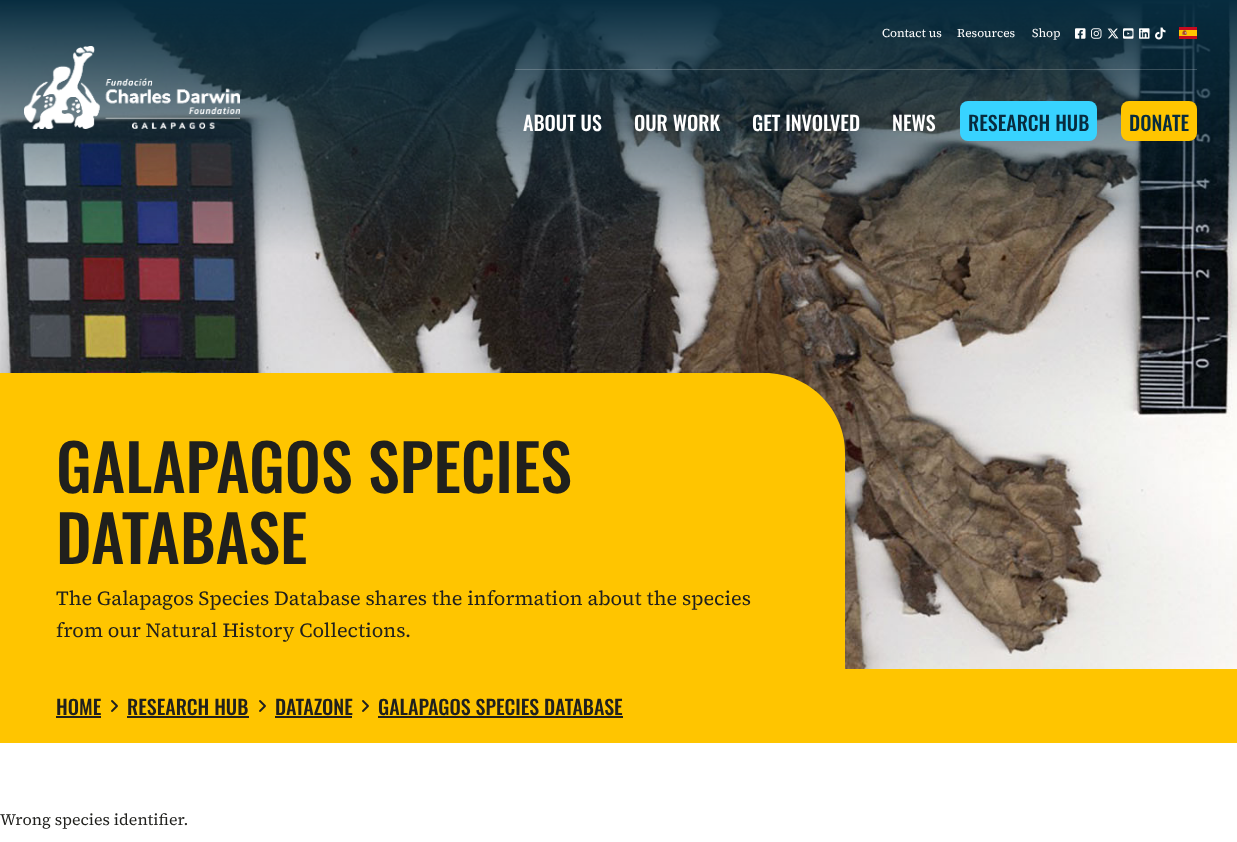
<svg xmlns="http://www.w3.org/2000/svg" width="1237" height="842">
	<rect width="100%" height="100%" fill="#FFFFFF" />
	<image x="0" y="0" width="1237" height="669" href="assets/img9.png" />
	<image x="24" y="46" width="216" height="83" href="assets/img1.png" />
	<g font-family="'Source Serif 4'" font-size="12" fill="#FFFFFF">
		<text x="882" y="37">Contact us</text>
		<text x="957" y="37">Resources</text>
		<text x="1032" y="37">Shop</text>
	</g>
	<image x="1075" y="28" width="11" height="11" href="assets/img2.png" />
	<image x="1091" y="28" width="11" height="11" href="assets/img3.png" />
	<image x="1107" y="28" width="12" height="11" href="assets/img4.png" />
	<image x="1123" y="28" width="11" height="11" href="assets/img5.png" />
	<image x="1139" y="28" width="11" height="11" href="assets/img6.png" />
	<image x="1155" y="27" width="11" height="13" href="assets/img7.png" />
	<image x="1179" y="27" width="18" height="12" href="assets/img8.png" />
	<rect x="515" y="69" width="682" height="1" fill="#FFFFFF" fill-opacity="0.2" />
	<g font-family="Oswald" font-size="20" font-weight="500" fill="#FFFFFF">
		<text x="523" y="131">ABOUT US</text>
		<text x="634" y="131">OUR WORK</text>
		<text x="752" y="131">GET INVOLVED</text>
		<text x="892" y="131">NEWS</text>
	</g>
	<rect x="960" y="101" width="137" height="40" rx="8" fill="#38D3FF" />
	<text x="968" y="131" font-family="Oswald" font-size="20" font-weight="500" fill="#072C3F">RESEARCH HUB</text>
	<rect x="1121" y="101" width="76" height="40" rx="8" fill="#FFC500" />
	<text x="1129" y="131" font-family="Oswald" font-size="20" font-weight="500" fill="#072C3F">DONATE</text>
	<path d="M0 373H765C809 373 845 409 845 453V743H0Z" fill="#FFC500" />
	<g font-family="Oswald" font-size="64" font-weight="500" fill="#20201D">
		<text x="56" y="493">GALAPAGOS SPECIES</text>
		<text x="56" y="564">DATABASE</text>
	</g>
	<g font-family="'Source Serif 4'" font-size="20" fill="#20201D">
		<text x="56" y="605">The Galapagos Species Database shares the information about the species</text>
		<text x="56" y="637">from our Natural History Collections.</text>
	</g>
	<rect x="845" y="669" width="392" height="74" fill="#FFC500" />
	<text x="56" y="715" font-family="Oswald" font-size="20" font-weight="500" fill="#20201D">HOME</text>
	<rect x="56" y="716" width="45" height="2" fill="#20201D" />
	<image x="111" y="700" width="7" height="12" href="assets/img10.png" />
	<text x="127" y="715" font-family="Oswald" font-size="20" font-weight="500" fill="#20201D">RESEARCH HUB</text>
	<rect x="127" y="716" width="122" height="2" fill="#20201D" />
	<image x="259" y="700" width="7" height="12" href="assets/img10.png" />
	<text x="275" y="715" font-family="Oswald" font-size="20" font-weight="500" fill="#20201D">DATAZONE</text>
	<rect x="275" y="716" width="77" height="2" fill="#20201D" />
	<image x="362" y="700" width="7" height="12" href="assets/img10.png" />
	<text x="378" y="715" font-family="Oswald" font-size="20" font-weight="500" fill="#20201D">GALAPAGOS SPECIES DATABASE</text>
	<rect x="378" y="716" width="245" height="2" fill="#20201D" />
	<text x="0" y="825" font-family="'Source Serif 4'" font-size="16" fill="#20201D">Wrong species identifier.</text>
</svg>
